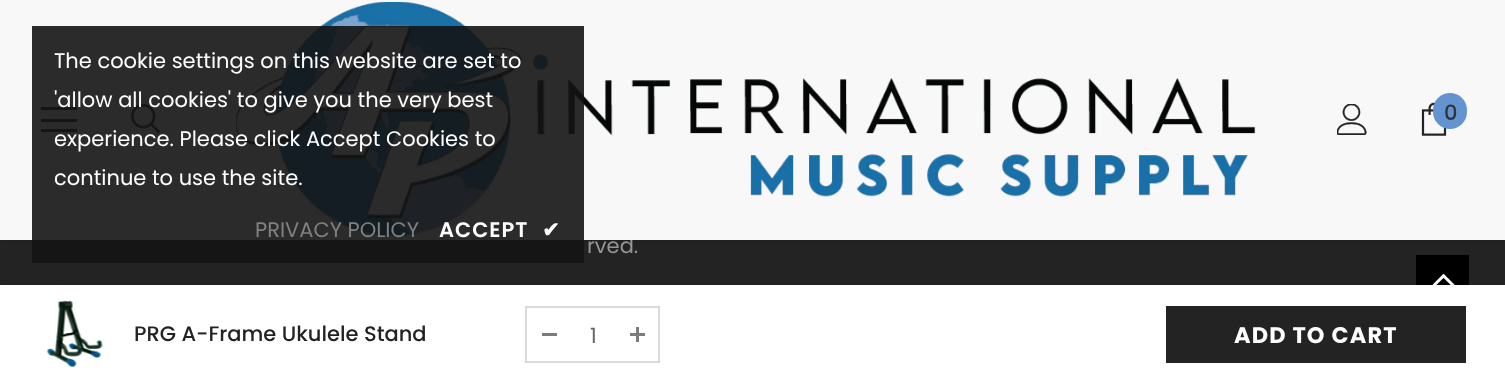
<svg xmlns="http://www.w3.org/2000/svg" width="1505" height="382">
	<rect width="100%" height="100%" fill="#232323" />
	<rect x="5" y="9" width="1497" height="231" fill="#000000" fill-opacity="0.12" filter="blur(2px)" />
	<text x="587" y="253" font-family="Poppins" font-size="21" fill="#969696">rved.</text>
	<rect x="0" y="0" width="1505" height="240" fill="#F8F8F8" />
	<rect x="41" y="107" width="36" height="3" fill="#232323" />
	<rect x="41" y="119" width="36" height="3" fill="#232323" />
	<rect x="41" y="129" width="36" height="3" fill="#232323" />
	<image x="131" y="104" width="29" height="29" href="assets/img3.png" />
	<image x="236" y="2" width="1020" height="234" href="assets/img4.png" />
	<rect x="32" y="26" width="552" height="237" fill="#141414" fill-opacity="0.9" />
	<g font-family="Poppins" font-size="21" fill="#FFFFFF">
		<text x="54" y="68">The cookie settings on this website are set to</text>
		<text x="54" y="107">'allow all cookies' to give you the very best</text>
		<text x="54" y="146">experience. Please click Accept Cookies to</text>
		<text x="54" y="185">continue to use the site.</text>
	</g>
	<text x="255" y="237" font-family="Poppins" font-size="21" fill="#818181">PRIVACY POLICY</text>
	<text x="439" y="237" font-family="Poppins" font-size="21" font-weight="600" letter-spacing="1" fill="#FFFFFF">ACCEPT</text>
	<text x="542" y="237" font-family="DejaVu Sans" font-size="21" font-weight="700" letter-spacing="1" fill="#FFFFFF">✔</text>
	<rect x="1416" y="255" width="53" height="30" fill="#000000" />
	<image x="1432" y="274" width="23" height="11" href="assets/img2.png" />
	<rect x="5" y="285" width="1497" height="89" fill="#000000" fill-opacity="0.1" filter="blur(2px)" />
	<rect x="0" y="285" width="1505" height="97" fill="#FFFFFF" />
	<image x="46" y="300" width="57" height="68" href="assets/img1.png" />
	<text x="134" y="341" font-family="Poppins" font-size="21" font-weight="500" fill="#232323">PRG A-Frame Ukulele Stand</text>
	<rect x="526" y="307" width="133" height="55" fill="none" stroke="#DADADA" stroke-width="2" />
	<rect x="542" y="333" width="15" height="3" fill="#7B7B7B" />
	<text x="590" y="343" font-family="Poppins" font-size="21" fill="#646464">1</text>
	<rect x="630" y="333" width="15" height="3" fill="#7B7B7B" />
	<rect x="636" y="327" width="3" height="15" fill="#7B7B7B" />
	<rect x="1166" y="306" width="300" height="57" fill="#232323" />
	<text x="1234" y="343" font-family="Poppins" font-size="22.5" font-weight="700" letter-spacing="1.1" fill="#FFFFFF">ADD TO CART</text>
	<image x="1337" y="104" width="30" height="31" href="assets/img5.png" />
	<image x="1421" y="102" width="26" height="34" href="assets/img6.png" />
	<rect x="1433" y="93" width="34" height="36" rx="17" fill="#6394CF" />
	<text x="1444" y="120" font-family="Poppins" font-size="21" font-weight="500" fill="#323232">0</text>
</svg>
